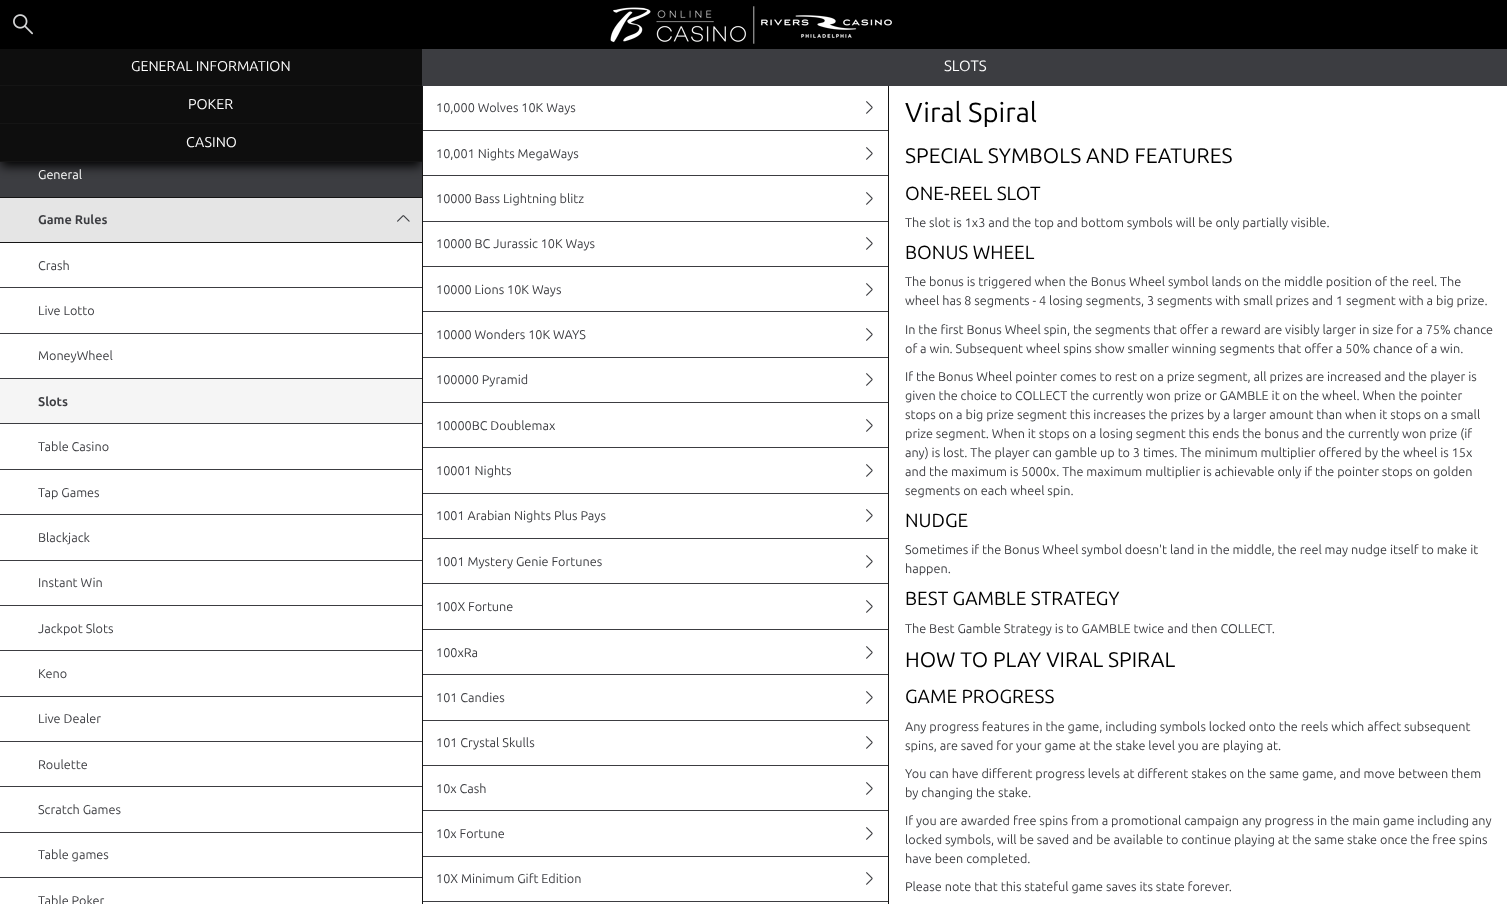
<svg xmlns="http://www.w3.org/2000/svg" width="1507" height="904">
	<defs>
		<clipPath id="clip1"><rect x="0" y="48" width="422" height="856" /></clipPath>
	</defs>
	<rect width="100%" height="100%" fill="#FFFFFF" />
	<rect x="0" y="162" width="422" height="716" fill="#3C3D41" />
	<rect x="422" y="86" width="1" height="818" fill="#151515" />
	<rect x="423" y="130" width="465" height="1" fill="#3C3D41" />
	<rect x="423" y="175" width="465" height="1" fill="#3C3D41" />
	<g clip-path="url(#clip1)">
		<rect x="1" y="54" width="420" height="112" fill="#000000" filter="blur(5.5px)" />
	</g>
	<rect x="0" y="0" width="1507" height="49" fill="#000000" />
	<image x="13" y="14" width="20" height="21" href="assets/img1.png" />
	<image x="610" y="6" width="282" height="38" href="assets/img2.png" />
	<rect x="0" y="49" width="422" height="36" fill="#0E0E0E" />
	<rect x="0" y="85" width="422" height="1" fill="#151515" />
	<text x="131" y="71" font-family="Ubuntu" font-size="14.25" fill="#FFFFFF">GENERAL INFORMATION</text>
	<rect x="0" y="86" width="422" height="37" fill="#0E0E0E" />
	<rect x="0" y="123" width="422" height="1" fill="#151515" />
	<text x="188" y="109" font-family="Ubuntu" font-size="14.25" fill="#FFFFFF">POKER</text>
	<rect x="0" y="124" width="422" height="37" fill="#0E0E0E" />
	<rect x="0" y="161" width="422" height="1" fill="#151515" />
	<text x="186" y="147" font-family="Ubuntu" font-size="14.25" fill="#FFFFFF">CASINO</text>
	<rect x="0" y="197" width="422" height="1" fill="#151515" />
	<text x="38" y="179" font-family="Ubuntu" font-size="12.65" fill="#FFFFFF">General</text>
	<rect x="0" y="198" width="422" height="44" fill="#E5E5E5" />
	<text x="38" y="224" font-family="Ubuntu" font-size="12.65" font-weight="700" fill="#3C3D41">Game Rules</text>
	<image x="397" y="215" width="13" height="7" href="assets/img3.png" />
	<rect x="0" y="242" width="422" height="1" fill="#151515" />
	<rect x="0" y="243" width="422" height="44" fill="#FFFFFF" />
	<text x="38" y="270" font-family="Ubuntu" font-size="12.65" fill="#3C3D41">Crash</text>
	<rect x="0" y="288" width="422" height="45" fill="#FFFFFF" />
	<text x="38" y="315" font-family="Ubuntu" font-size="12.65" fill="#3C3D41">Live Lotto</text>
	<rect x="0" y="334" width="422" height="44" fill="#FFFFFF" />
	<text x="38" y="360" font-family="Ubuntu" font-size="12.65" fill="#3C3D41">MoneyWheel</text>
	<rect x="0" y="379" width="422" height="44" fill="#F5F5F5" />
	<text x="38" y="406" font-family="Ubuntu" font-size="12.65" font-weight="700" fill="#3C3D41">Slots</text>
	<rect x="0" y="424" width="422" height="45" fill="#FFFFFF" />
	<text x="38" y="451" font-family="Ubuntu" font-size="12.65" fill="#3C3D41">Table Casino</text>
	<rect x="0" y="470" width="422" height="44" fill="#FFFFFF" />
	<text x="38" y="497" font-family="Ubuntu" font-size="12.65" fill="#3C3D41">Tap Games</text>
	<rect x="0" y="515" width="422" height="45" fill="#FFFFFF" />
	<text x="38" y="542" font-family="Ubuntu" font-size="12.65" fill="#3C3D41">Blackjack</text>
	<rect x="0" y="561" width="422" height="44" fill="#FFFFFF" />
	<text x="38" y="587" font-family="Ubuntu" font-size="12.65" fill="#3C3D41">Instant Win</text>
	<rect x="0" y="606" width="422" height="44" fill="#FFFFFF" />
	<text x="38" y="633" font-family="Ubuntu" font-size="12.65" fill="#3C3D41">Jackpot Slots</text>
	<rect x="0" y="651" width="422" height="45" fill="#FFFFFF" />
	<text x="38" y="678" font-family="Ubuntu" font-size="12.65" fill="#3C3D41">Keno</text>
	<rect x="0" y="697" width="422" height="44" fill="#FFFFFF" />
	<text x="38" y="723" font-family="Ubuntu" font-size="12.65" fill="#3C3D41">Live Dealer</text>
	<rect x="0" y="742" width="422" height="44" fill="#FFFFFF" />
	<text x="38" y="769" font-family="Ubuntu" font-size="12.65" fill="#3C3D41">Roulette</text>
	<rect x="0" y="787" width="422" height="45" fill="#FFFFFF" />
	<text x="38" y="814" font-family="Ubuntu" font-size="12.65" fill="#3C3D41">Scratch Games</text>
	<rect x="0" y="833" width="422" height="44" fill="#FFFFFF" />
	<g font-family="Ubuntu" font-size="12.65" fill="#3C3D41">
		<text x="38" y="859">Table games</text>
		<text x="38" y="905">Table Poker</text>
	</g>
	<rect x="422" y="49" width="1085" height="37" fill="#3C3D41" />
	<text x="944" y="71" font-family="Ubuntu" font-size="15" fill="#FFFFFF">SLOTS</text>
	<rect x="888" y="86" width="1" height="818" fill="#151515" />
	<text x="436" y="112" font-family="Ubuntu" font-size="12.65" fill="#3C3D41">10,000 Wolves 10K Ways</text>
	<image x="866" y="101" width="7" height="13" href="assets/img4.png" />
	<text x="436" y="158" font-family="Ubuntu" font-size="12.65" fill="#3C3D41">10,001 Nights MegaWays</text>
	<image x="866" y="147" width="7" height="13" href="assets/img4.png" />
	<rect x="423" y="221" width="465" height="1" fill="#3C3D41" />
	<text x="436" y="203" font-family="Ubuntu" font-size="12.65" fill="#3C3D41">10000 Bass Lightning blitz</text>
	<image x="866" y="192" width="7" height="13" href="assets/img4.png" />
	<rect x="423" y="266" width="465" height="1" fill="#3C3D41" />
	<text x="436" y="248" font-family="Ubuntu" font-size="12.65" fill="#3C3D41">10000 BC Jurassic 10K Ways</text>
	<image x="866" y="237" width="7" height="13" href="assets/img4.png" />
	<rect x="423" y="311" width="465" height="1" fill="#3C3D41" />
	<text x="436" y="294" font-family="Ubuntu" font-size="12.65" fill="#3C3D41">10000 Lions 10K Ways</text>
	<image x="866" y="283" width="7" height="13" href="assets/img4.png" />
	<rect x="423" y="357" width="465" height="1" fill="#3C3D41" />
	<text x="436" y="339" font-family="Ubuntu" font-size="12.65" fill="#3C3D41">10000 Wonders 10K WAYS</text>
	<image x="866" y="328" width="7" height="13" href="assets/img4.png" />
	<rect x="423" y="402" width="465" height="1" fill="#3C3D41" />
	<text x="436" y="384" font-family="Ubuntu" font-size="12.65" fill="#3C3D41">100000 Pyramid</text>
	<image x="866" y="373" width="7" height="13" href="assets/img4.png" />
	<rect x="423" y="447" width="465" height="1" fill="#3C3D41" />
	<text x="436" y="430" font-family="Ubuntu" font-size="12.65" fill="#3C3D41">10000BC Doublemax</text>
	<image x="866" y="419" width="7" height="13" href="assets/img4.png" />
	<rect x="423" y="493" width="465" height="1" fill="#3C3D41" />
	<text x="436" y="475" font-family="Ubuntu" font-size="12.65" fill="#3C3D41">10001 Nights</text>
	<image x="866" y="464" width="7" height="13" href="assets/img4.png" />
	<rect x="423" y="538" width="465" height="1" fill="#3C3D41" />
	<text x="436" y="520" font-family="Ubuntu" font-size="12.65" fill="#3C3D41">1001 Arabian Nights Plus Pays</text>
	<image x="866" y="509" width="7" height="13" href="assets/img4.png" />
	<rect x="423" y="583" width="465" height="1" fill="#3C3D41" />
	<text x="436" y="566" font-family="Ubuntu" font-size="12.65" fill="#3C3D41">1001 Mystery Genie Fortunes</text>
	<image x="866" y="555" width="7" height="13" href="assets/img4.png" />
	<rect x="423" y="629" width="465" height="1" fill="#3C3D41" />
	<text x="436" y="611" font-family="Ubuntu" font-size="12.65" fill="#3C3D41">100X Fortune</text>
	<image x="866" y="600" width="7" height="13" href="assets/img4.png" />
	<rect x="423" y="674" width="465" height="1" fill="#3C3D41" />
	<text x="436" y="657" font-family="Ubuntu" font-size="12.65" fill="#3C3D41">100xRa</text>
	<image x="866" y="646" width="7" height="13" href="assets/img4.png" />
	<rect x="423" y="720" width="465" height="1" fill="#3C3D41" />
	<text x="436" y="702" font-family="Ubuntu" font-size="12.65" fill="#3C3D41">101 Candies</text>
	<image x="866" y="691" width="7" height="13" href="assets/img4.png" />
	<rect x="423" y="765" width="465" height="1" fill="#3C3D41" />
	<text x="436" y="747" font-family="Ubuntu" font-size="12.65" fill="#3C3D41">101 Crystal Skulls</text>
	<image x="866" y="736" width="7" height="13" href="assets/img4.png" />
	<rect x="423" y="810" width="465" height="1" fill="#3C3D41" />
	<text x="436" y="793" font-family="Ubuntu" font-size="12.65" fill="#3C3D41">10x Cash</text>
	<image x="866" y="782" width="7" height="13" href="assets/img4.png" />
	<rect x="423" y="856" width="465" height="1" fill="#3C3D41" />
	<text x="436" y="838" font-family="Ubuntu" font-size="12.65" fill="#3C3D41">10x Fortune</text>
	<image x="866" y="827" width="7" height="13" href="assets/img4.png" />
	<rect x="423" y="901" width="465" height="1" fill="#3C3D41" />
	<text x="436" y="883" font-family="Ubuntu" font-size="12.65" fill="#3C3D41">10X Minimum Gift Edition</text>
	<image x="866" y="872" width="7" height="13" href="assets/img4.png" />
	<text x="905" y="122" font-family="Ubuntu" font-size="27.5" fill="#000000">Viral Spiral</text>
	<text x="905" y="163" font-family="Ubuntu" font-size="21.1" fill="#000000">SPECIAL SYMBOLS AND FEATURES</text>
	<text x="905" y="200" font-family="Ubuntu" font-size="19" fill="#000000">ONE-REEL SLOT</text>
	<text x="905" y="227" font-family="Ubuntu" font-size="12.65" fill="#3C3D41">The slot is 1x3 and the top and bottom symbols will be only partially visible.</text>
	<text x="905" y="259" font-family="Ubuntu" font-size="19" fill="#000000">BONUS WHEEL</text>
	<g font-family="Ubuntu" font-size="12.65" fill="#3C3D41">
		<text x="905" y="286">The bonus is triggered when the Bonus Wheel symbol lands on the middle position of the reel. The</text>
		<text x="905" y="305">wheel has 8 segments - 4 losing segments, 3 segments with small prizes and 1 segment with a big prize.</text>
		<text x="905" y="334">In the first Bonus Wheel spin, the segments that offer a reward are visibly larger in size for a 75% chance</text>
		<text x="905" y="353">of a win. Subsequent wheel spins show smaller winning segments that offer a 50% chance of a win.</text>
		<text x="905" y="381">If the Bonus Wheel pointer comes to rest on a prize segment, all prizes are increased and the player is</text>
		<text x="905" y="400">given the choice to COLLECT the currently won prize or GAMBLE it on the wheel. When the pointer</text>
		<text x="905" y="419">stops on a big prize segment this increases the prizes by a larger amount than when it stops on а small</text>
		<text x="905" y="438">prize segment. When it stops on a losing segment this ends the bonus and the currently won prize (if</text>
		<text x="905" y="457">any) is lost. The player can gamble up to 3 times. The minimum multiplier offered by the wheel is 15x</text>
		<text x="905" y="476">and the maximum is 5000x. The maximum multiplier is achievable only if the pointer stops on golden</text>
		<text x="905" y="495">segments on each wheel spin.</text>
	</g>
	<text x="905" y="527" font-family="Ubuntu" font-size="19" fill="#000000">NUDGE</text>
	<g font-family="Ubuntu" font-size="12.65" fill="#3C3D41">
		<text x="905" y="554">Sometimes if the Bonus Wheel symbol doesn't land in the middle, the reel may nudge itself to make it</text>
		<text x="905" y="573">happen.</text>
	</g>
	<text x="905" y="605" font-family="Ubuntu" font-size="19" fill="#000000">BEST GAMBLE STRATEGY</text>
	<text x="905" y="633" font-family="Ubuntu" font-size="12.65" fill="#3C3D41">The Best Gamble Strategy is to GAMBLE twice and then COLLECT.</text>
	<text x="905" y="667" font-family="Ubuntu" font-size="21.1" fill="#000000">HOW TO PLAY VIRAL SPIRAL</text>
	<text x="905" y="703" font-family="Ubuntu" font-size="19" fill="#000000">GAME PROGRESS</text>
	<g font-family="Ubuntu" font-size="12.65" fill="#3C3D41">
		<text x="905" y="731">Any progress features in the game, including symbols locked onto the reels which affect subsequent</text>
		<text x="905" y="750">spins, are saved for your game at the stake level you are playing at.</text>
		<text x="905" y="778">You can have different progress levels at different stakes on the same game, and move between them</text>
		<text x="905" y="797">by changing the stake.</text>
		<text x="905" y="825">If you are awarded free spins from a promotional campaign any progress in the main game including any</text>
		<text x="905" y="844">locked symbols, will be saved and be available to continue playing at the same stake once the free spins</text>
		<text x="905" y="863">have been completed.</text>
		<text x="905" y="891">Please note that this stateful game saves its state forever.</text>
	</g>
</svg>
